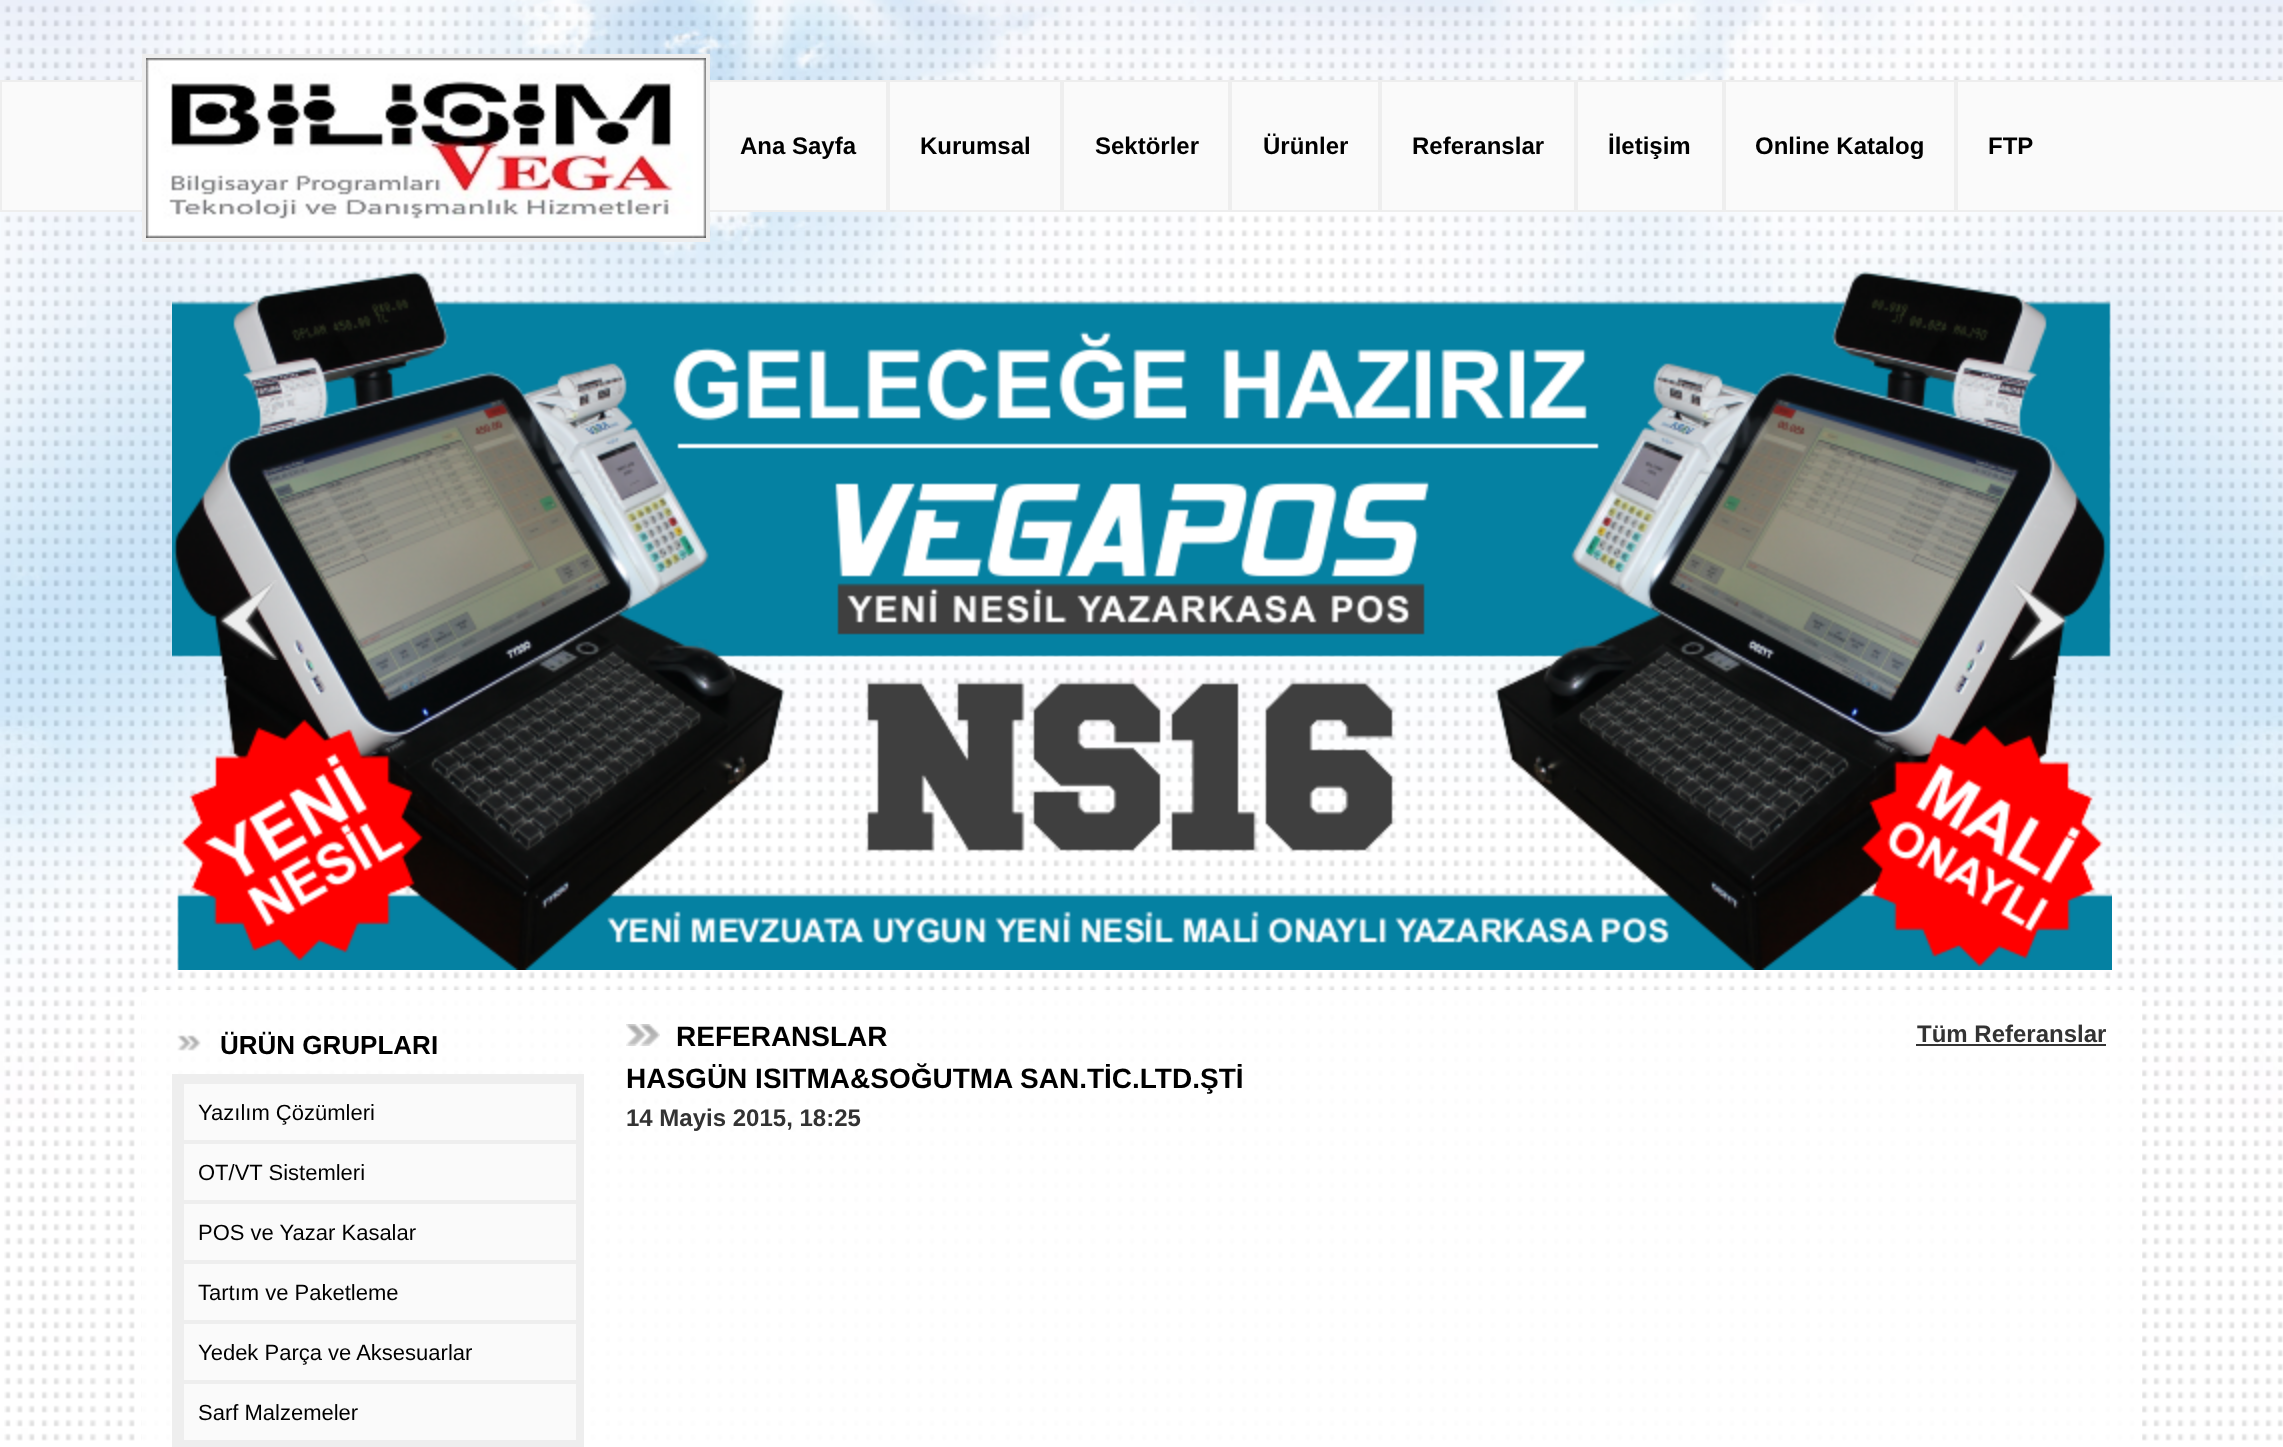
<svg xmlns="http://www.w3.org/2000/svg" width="2283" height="1447">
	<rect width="100%" height="100%" fill="#FFFFFF" />
	<image x="4" y="5" width="2279" height="1436" href="assets/img1.png" />
	<image x="0" y="0" width="2283" height="1441" href="assets/img2.png" />
	<rect x="1" y="81" width="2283" height="130" fill="#FAFAFA" stroke="#EEEEEE" stroke-width="2" />
	<rect x="144" y="56" width="564" height="184" fill="none" stroke="#EEEEEE" stroke-width="4" />
	<image x="146" y="58" width="560" height="180" href="assets/img3.png" />
	<text x="740" y="154" font-family="Liberation Sans" font-size="24" font-weight="700" fill="#000000">Ana Sayfa</text>
	<rect x="886" y="82" width="4" height="128" fill="#EEEEEE" />
	<text x="920" y="154" font-family="Liberation Sans" font-size="24" font-weight="700" fill="#000000">Kurumsal</text>
	<rect x="1060" y="82" width="4" height="128" fill="#EEEEEE" />
	<text x="1095" y="154" font-family="Liberation Sans" font-size="24" font-weight="700" fill="#000000">Sektörler</text>
	<rect x="1228" y="82" width="4" height="128" fill="#EEEEEE" />
	<text x="1263" y="154" font-family="Liberation Sans" font-size="24" font-weight="700" fill="#000000">Ürünler</text>
	<rect x="1378" y="82" width="4" height="128" fill="#EEEEEE" />
	<text x="1412" y="154" font-family="Liberation Sans" font-size="24" font-weight="700" fill="#000000">Referanslar</text>
	<rect x="1574" y="82" width="4" height="128" fill="#EEEEEE" />
	<text x="1608" y="154" font-family="Liberation Sans" font-size="24" font-weight="700" fill="#000000">İletişim</text>
	<rect x="1722" y="82" width="4" height="128" fill="#EEEEEE" />
	<text x="1755" y="154" font-family="Liberation Sans" font-size="24" font-weight="700" fill="#000000">Online Katalog</text>
	<rect x="1954" y="82" width="4" height="128" fill="#EEEEEE" />
	<text x="1988" y="154" font-family="Liberation Sans" font-size="24" font-weight="700" fill="#000000">FTP</text>
	<image x="172" y="271" width="1940" height="699" href="assets/img4.png" />
	<image x="219" y="580" width="60" height="80" href="assets/img5.png" />
	<image x="2008" y="580" width="60" height="80" href="assets/img6.png" />
	<image x="142" y="990" width="2000" height="451" href="assets/img7.png" />
	<image x="177" y="1035" width="24" height="16" href="assets/img8.png" />
	<text x="220" y="1054" font-family="Liberation Sans" font-size="26" font-weight="700" fill="#000000">ÜRÜN GRUPLARI</text>
	<rect x="172" y="1074" width="412" height="373" fill="#EEEEEE" />
	<rect x="184" y="1084" width="392" height="56" fill="#FAFAFA" />
	<text x="198" y="1120" font-family="Liberation Sans" font-size="22" fill="#000000">Yazılım Çözümleri</text>
	<rect x="184" y="1144" width="392" height="56" fill="#FAFAFA" />
	<text x="198" y="1180" font-family="Liberation Sans" font-size="22" fill="#000000">OT/VT Sistemleri</text>
	<rect x="184" y="1204" width="392" height="56" fill="#FAFAFA" />
	<text x="198" y="1240" font-family="Liberation Sans" font-size="22" fill="#000000">POS ve Yazar Kasalar</text>
	<rect x="184" y="1264" width="392" height="56" fill="#FAFAFA" />
	<text x="198" y="1300" font-family="Liberation Sans" font-size="22" fill="#000000">Tartım ve Paketleme</text>
	<rect x="184" y="1324" width="392" height="56" fill="#FAFAFA" />
	<text x="198" y="1360" font-family="Liberation Sans" font-size="22" fill="#000000">Yedek Parça ve Aksesuarlar</text>
	<rect x="184" y="1384" width="392" height="56" fill="#FAFAFA" />
	<text x="198" y="1420" font-family="Liberation Sans" font-size="22" fill="#000000">Sarf Malzemeler</text>
	<image x="626" y="1024" width="34" height="22" href="assets/img9.png" />
	<text x="676" y="1046" font-family="Liberation Sans" font-size="28" font-weight="700" fill="#000000">REFERANSLAR</text>
	<text x="1917" y="1042" font-family="Liberation Sans" font-size="24" font-weight="700" fill="#333333">Tüm Referanslar</text>
	<rect x="1916" y="1044" width="190" height="2" fill="#333333" />
	<text x="626" y="1088" font-family="Liberation Sans" font-size="28" font-weight="700" fill="#000000">HASGÜN ISITMA&amp;SOĞUTMA SAN.TİC.LTD.ŞTİ</text>
	<text x="626" y="1126" font-family="Liberation Sans" font-size="24" font-weight="700" fill="#333333">14 Mayis 2015, 18:25</text>
</svg>
